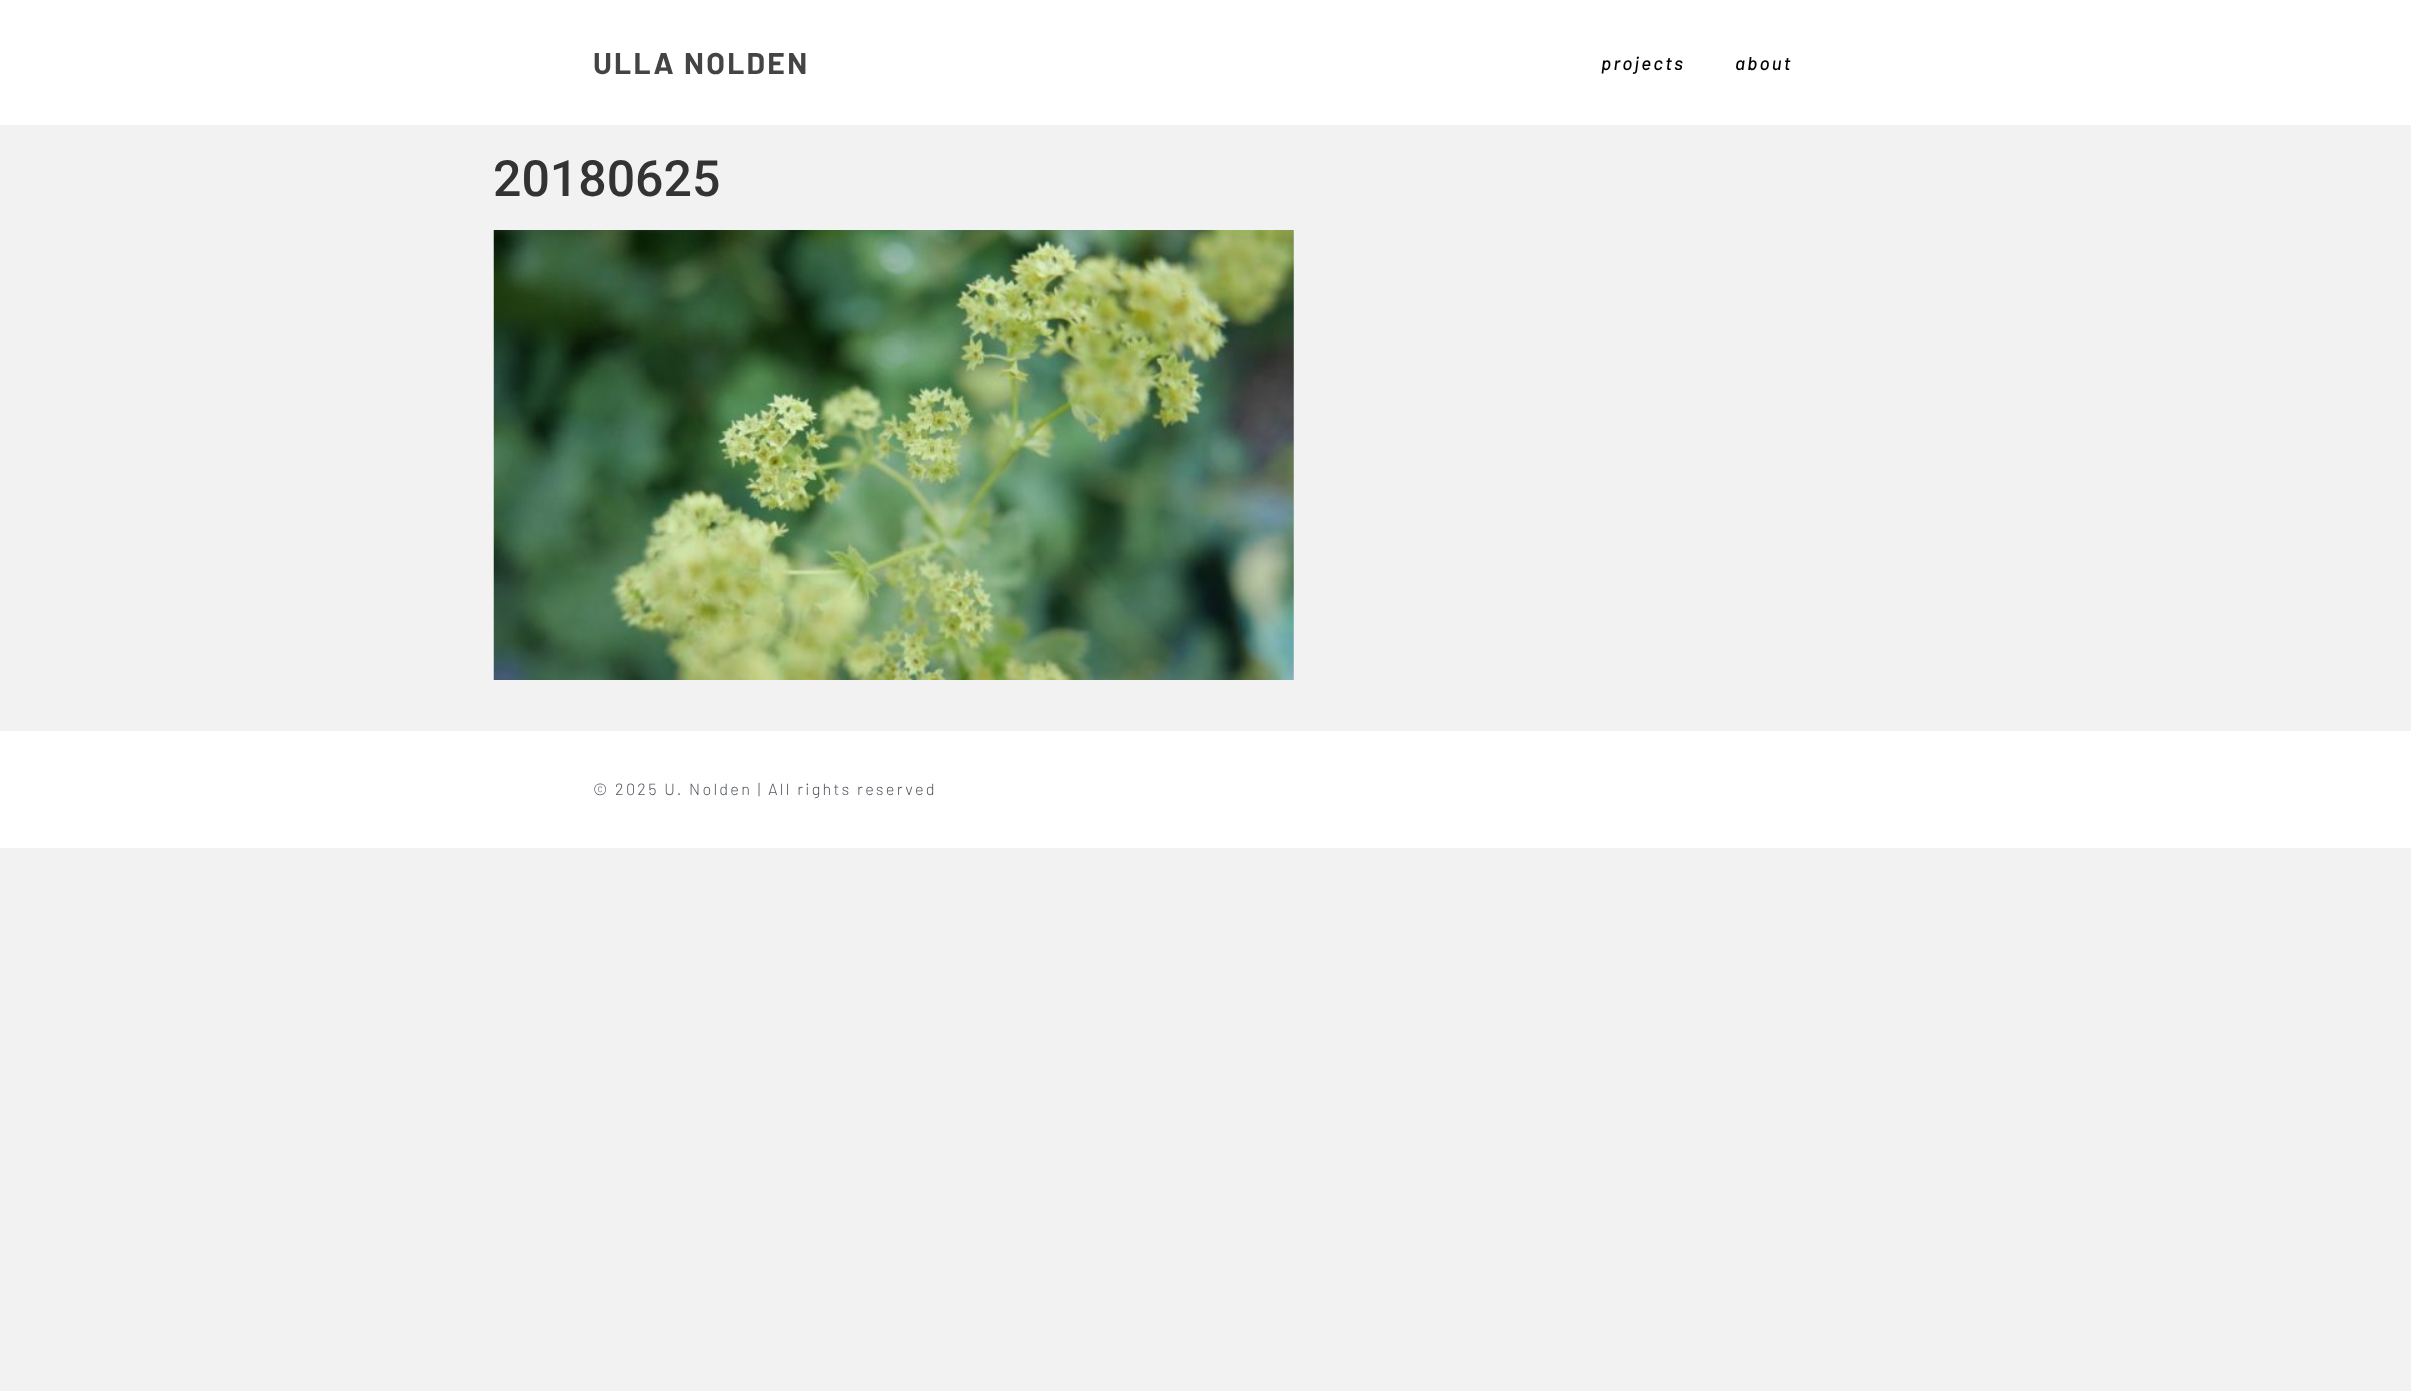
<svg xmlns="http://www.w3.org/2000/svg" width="2411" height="1391">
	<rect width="100%" height="100%" fill="#F2F2F2" />
	<rect x="0" y="0" width="2411" height="125" fill="#FFFFFF" />
	<text x="593" y="74" font-family="Barlow" font-size="30" font-weight="700" letter-spacing="2.25" fill="#444444">ULLA NOLDEN</text>
	<g font-family="Barlow" font-size="18.75" font-weight="500" font-style="italic" letter-spacing="2.25" fill="#000000">
		<text x="1601" y="70">projects</text>
		<text x="1735" y="70">about</text>
	</g>
	<text x="493" y="196" font-family="Roboto" font-size="50" font-weight="500" fill="#333333">20180625</text>
	<image x="493" y="230" width="801" height="450" href="assets/img1.png" />
	<rect x="0" y="731" width="2411" height="117" fill="#FFFFFF" />
	<text x="593" y="795" font-family="Barlow" font-size="16.25" font-weight="300" letter-spacing="2.25" fill="#54595F">© 2025 U. Nolden | All rights reserved</text>
</svg>
